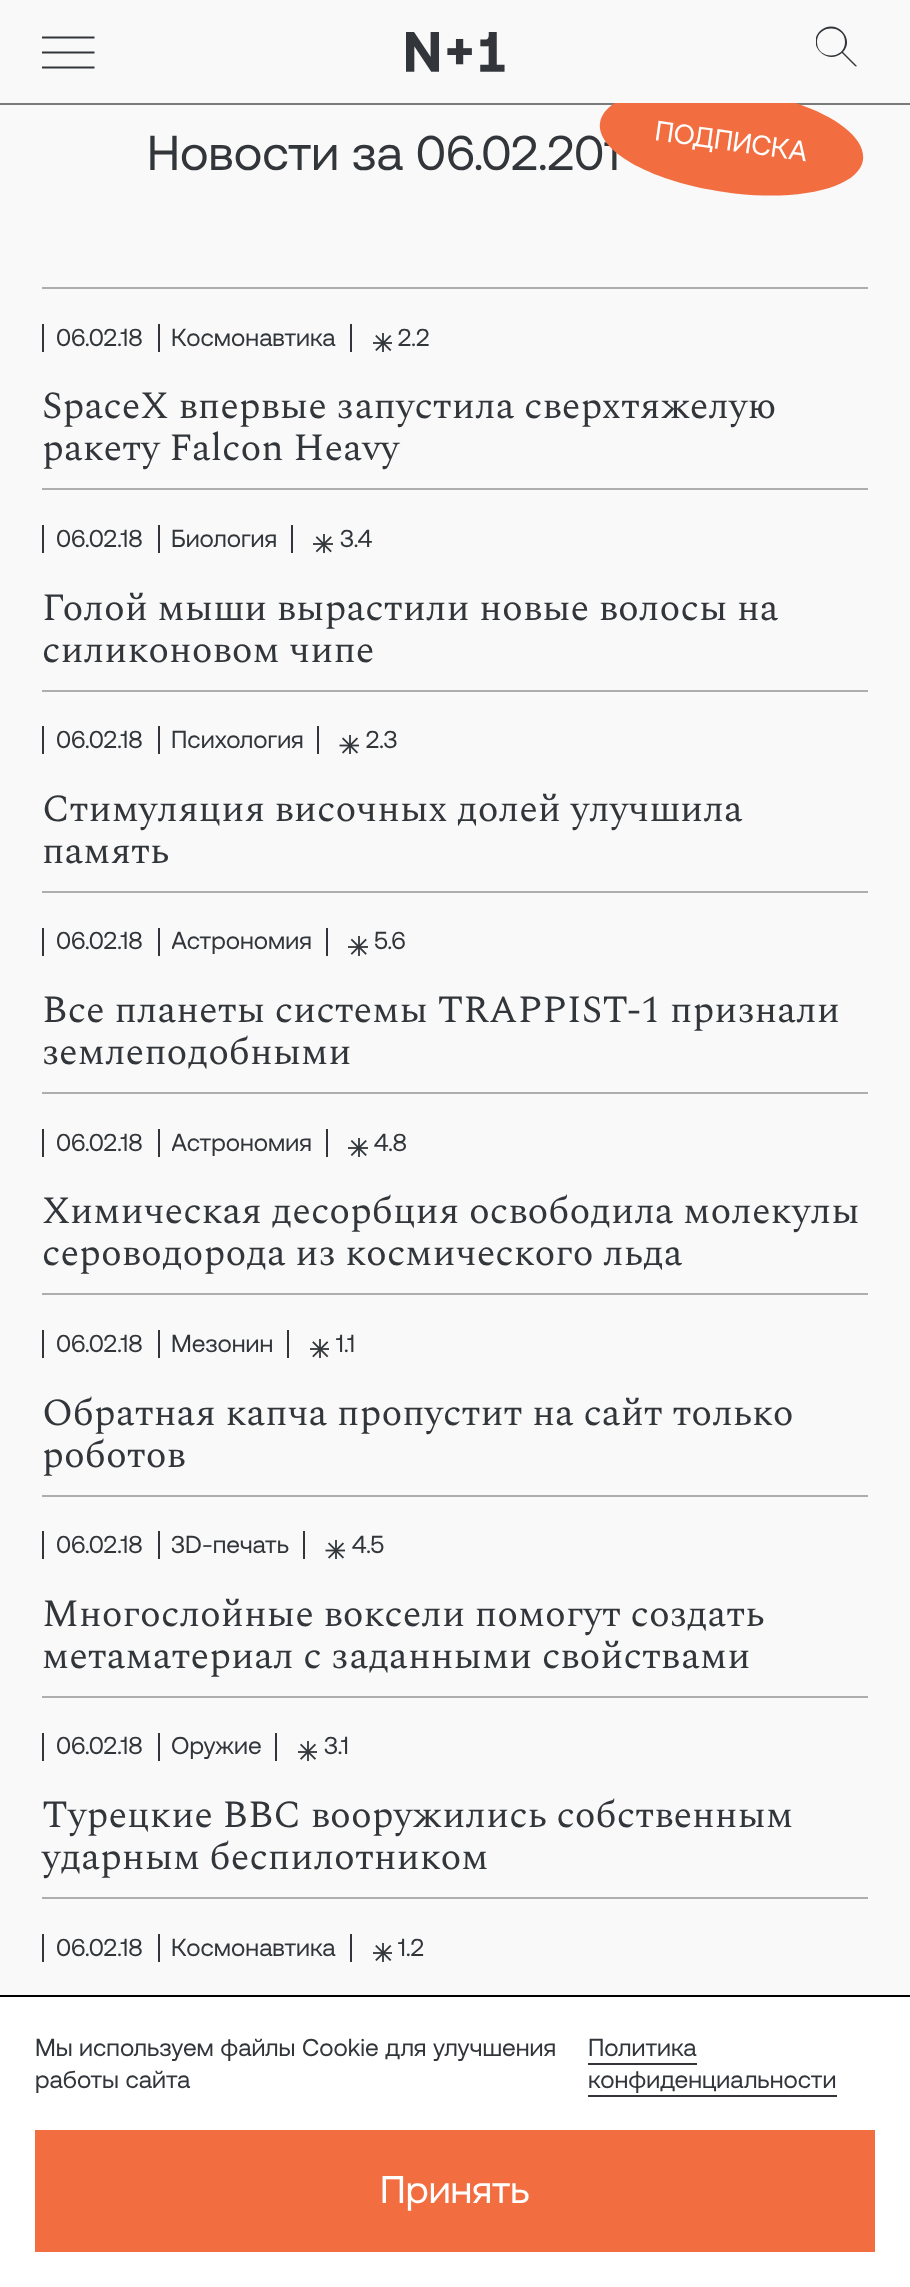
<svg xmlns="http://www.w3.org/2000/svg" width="910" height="2287">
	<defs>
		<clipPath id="clip1"><rect x="816" y="26" width="52" height="53" /></clipPath>
		<clipPath id="clip2"><rect x="599" y="103" width="266" height="104" /></clipPath>
		<clipPath id="clip3"><rect x="172" y="929" width="140" height="27" /></clipPath>
		<clipPath id="clip4"><rect x="172" y="1131" width="140" height="26" /></clipPath>
		<clipPath id="clip5"><rect x="172" y="1533" width="117" height="26" /></clipPath>
		<clipPath id="clip6"><rect x="172" y="1734" width="89" height="27" /></clipPath>
	</defs>
	<rect width="100%" height="100%" fill="#F9F9F9" />
	<text x="147" y="170" font-family="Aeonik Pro" font-size="49" fill="#32363A">Новости за 06.02.201</text>
	<rect x="0" y="103" width="910" height="2" fill="#7A7A7A" />
	<path d="M42 37.5H94.5M42 67.5H94.5M42 52.5H94.5" fill="none" stroke="#32363A" stroke-width="1.8" />
	<image x="406" y="32" width="99" height="40" href="assets/img1.png" />
	<g clip-path="url(#clip1)">
		<path d="M845 42C845 60 817 60 817 42C817 24 845 24 845 42ZM842 53C827 66 806 45 820 31C835 17 856 38 843 52L857 66C857 66 856 67 855 66Z" fill="#32363A" fill-rule="evenodd" />
	</g>
	<g clip-path="url(#clip2)">
		<path d="M739 90C812 100 867 131 863 160C859 188 797 203 724 192C652 182 596 151 600 123C604 94 666 80 739 90Z" fill="#F26E40" />
	</g>
	<text x="654" y="140" transform="rotate(8 654 140)" font-family="Aeonik Pro" font-size="28" fill="#FFFFFF">ПОДПИСКА</text>
	<rect x="42" y="287" width="826" height="2" fill="#AEAEAE" />
	<rect x="42" y="324" width="2" height="28" fill="#32363A" />
	<text x="56" y="346" font-family="Aeonik Pro" font-size="24.5" fill="#32363A">06.02.18</text>
	<rect x="158" y="324" width="2" height="28" fill="#32363A" />
	<text x="171" y="346" font-family="Aeonik Pro" font-size="24.5" fill="#32363A">Космонавтика</text>
	<rect x="350" y="324" width="2" height="28" fill="#32363A" />
	<image x="373" y="333" width="19" height="19" href="assets/img2.png" />
	<text x="398" y="346" font-family="Aeonik Pro" font-size="24.5" fill="#32363A">2.2</text>
	<g font-family="Spectral" font-size="38.5" fill="#32363A">
		<text x="42" y="418">SpaceX впервые запустила сверхтяжелую</text>
		<text x="42" y="460">ракету Falcon Heavy</text>
	</g>
	<rect x="42" y="488" width="826" height="2" fill="#AEAEAE" />
	<rect x="42" y="525" width="2" height="28" fill="#32363A" />
	<text x="56" y="547" font-family="Aeonik Pro" font-size="24.5" fill="#32363A">06.02.18</text>
	<rect x="158" y="525" width="2" height="28" fill="#32363A" />
	<text x="171" y="547" font-family="Aeonik Pro" font-size="24.5" fill="#32363A">Биология</text>
	<rect x="291" y="525" width="2" height="28" fill="#32363A" />
	<image x="313" y="534" width="20" height="19" href="assets/img3.png" />
	<text x="340" y="547" font-family="Aeonik Pro" font-size="24.5" fill="#32363A">3.4</text>
	<g font-family="Spectral" font-size="38.5" fill="#32363A">
		<text x="42" y="620">Голой мыши вырастили новые волосы на</text>
		<text x="42" y="662">силиконовом чипе</text>
	</g>
	<rect x="42" y="690" width="826" height="2" fill="#AEAEAE" />
	<rect x="42" y="726" width="2" height="28" fill="#32363A" />
	<text x="56" y="748" font-family="Aeonik Pro" font-size="24.5" fill="#32363A">06.02.18</text>
	<rect x="158" y="726" width="2" height="28" fill="#32363A" />
	<text x="171" y="748" font-family="Aeonik Pro" font-size="24.5" fill="#32363A">Психология</text>
	<rect x="317" y="726" width="2" height="28" fill="#32363A" />
	<image x="339" y="735" width="20" height="19" href="assets/img4.png" />
	<text x="366" y="748" font-family="Aeonik Pro" font-size="24.5" fill="#32363A">2.3</text>
	<g font-family="Spectral" font-size="38.5" fill="#32363A">
		<text x="42" y="821">Стимуляция височных долей улучшила</text>
		<text x="42" y="863">память</text>
	</g>
	<rect x="42" y="891" width="826" height="2" fill="#AEAEAE" />
	<rect x="42" y="928" width="2" height="28" fill="#32363A" />
	<text x="56" y="949" font-family="Aeonik Pro" font-size="24.5" fill="#32363A">06.02.18</text>
	<rect x="158" y="928" width="2" height="28" fill="#32363A" />
	<g clip-path="url(#clip3)">
		<text x="171" y="949" font-family="Aeonik Pro" font-size="24.5" fill="#32363A">Астрономия</text>
	</g>
	<rect x="326" y="928" width="2" height="28" fill="#32363A" />
	<image x="348" y="936" width="20" height="20" href="assets/img5.png" />
	<text x="374" y="949" font-family="Aeonik Pro" font-size="24.5" fill="#32363A">5.6</text>
	<g font-family="Spectral" font-size="38.5" fill="#32363A">
		<text x="42" y="1022">Все планеты системы TRAPPIST-1 признали</text>
		<text x="42" y="1064">землеподобными</text>
	</g>
	<rect x="42" y="1092" width="826" height="2" fill="#AEAEAE" />
	<rect x="42" y="1129" width="2" height="28" fill="#32363A" />
	<text x="56" y="1151" font-family="Aeonik Pro" font-size="24.5" fill="#32363A">06.02.18</text>
	<rect x="158" y="1129" width="2" height="28" fill="#32363A" />
	<g clip-path="url(#clip4)">
		<text x="171" y="1151" font-family="Aeonik Pro" font-size="24.5" fill="#32363A">Астрономия</text>
	</g>
	<rect x="326" y="1129" width="2" height="28" fill="#32363A" />
	<image x="348" y="1138" width="20" height="19" href="assets/img6.png" />
	<text x="374" y="1151" font-family="Aeonik Pro" font-size="24.5" fill="#32363A">4.8</text>
	<g font-family="Spectral" font-size="38.5" fill="#32363A">
		<text x="42" y="1223">Химическая десорбция освободила молекулы</text>
		<text x="42" y="1265">сероводорода из космического льда</text>
	</g>
	<rect x="42" y="1293" width="826" height="2" fill="#AEAEAE" />
	<rect x="42" y="1330" width="2" height="28" fill="#32363A" />
	<text x="56" y="1352" font-family="Aeonik Pro" font-size="24.5" fill="#32363A">06.02.18</text>
	<rect x="158" y="1330" width="2" height="28" fill="#32363A" />
	<text x="171" y="1352" font-family="Aeonik Pro" font-size="24.5" fill="#32363A">Мезонин</text>
	<rect x="287" y="1330" width="2" height="28" fill="#32363A" />
	<image x="310" y="1339" width="19" height="19" href="assets/img7.png" />
	<text x="336" y="1352" font-family="Aeonik Pro" font-size="24.5" fill="#32363A">1.1</text>
	<g font-family="Spectral" font-size="38.5" fill="#32363A">
		<text x="42" y="1425">Обратная капча пропустит на сайт только</text>
		<text x="42" y="1467">роботов</text>
	</g>
	<rect x="42" y="1495" width="826" height="2" fill="#AEAEAE" />
	<rect x="42" y="1531" width="2" height="28" fill="#32363A" />
	<text x="56" y="1553" font-family="Aeonik Pro" font-size="24.5" fill="#32363A">06.02.18</text>
	<rect x="158" y="1531" width="2" height="28" fill="#32363A" />
	<g clip-path="url(#clip5)">
		<text x="171" y="1553" font-family="Aeonik Pro" font-size="24.5" fill="#32363A">3D-печать</text>
	</g>
	<rect x="303" y="1531" width="2" height="28" fill="#32363A" />
	<image x="325" y="1540" width="20" height="19" href="assets/img4.png" />
	<text x="352" y="1553" font-family="Aeonik Pro" font-size="24.5" fill="#32363A">4.5</text>
	<g font-family="Spectral" font-size="38.5" fill="#32363A">
		<text x="42" y="1626">Многослойные воксели помогут создать</text>
		<text x="42" y="1668">метаматериал с заданными свойствами</text>
	</g>
	<rect x="42" y="1696" width="826" height="2" fill="#AEAEAE" />
	<rect x="42" y="1733" width="2" height="28" fill="#32363A" />
	<text x="56" y="1754" font-family="Aeonik Pro" font-size="24.5" fill="#32363A">06.02.18</text>
	<rect x="158" y="1733" width="2" height="28" fill="#32363A" />
	<g clip-path="url(#clip6)">
		<text x="171" y="1754" font-family="Aeonik Pro" font-size="24.5" fill="#32363A">Оружие</text>
	</g>
	<rect x="275" y="1733" width="2" height="28" fill="#32363A" />
	<image x="298" y="1741" width="19" height="20" href="assets/img8.png" />
	<text x="324" y="1754" font-family="Aeonik Pro" font-size="24.5" fill="#32363A">3.1</text>
	<g font-family="Spectral" font-size="38.5" fill="#32363A">
		<text x="42" y="1827">Турецкие ВВС вооружились собственным</text>
		<text x="42" y="1869">ударным беспилотником</text>
	</g>
	<rect x="42" y="1897" width="826" height="2" fill="#AEAEAE" />
	<rect x="42" y="1934" width="2" height="28" fill="#32363A" />
	<text x="56" y="1956" font-family="Aeonik Pro" font-size="24.5" fill="#32363A">06.02.18</text>
	<rect x="158" y="1934" width="2" height="28" fill="#32363A" />
	<text x="171" y="1956" font-family="Aeonik Pro" font-size="24.5" fill="#32363A">Космонавтика</text>
	<rect x="350" y="1934" width="2" height="28" fill="#32363A" />
	<image x="373" y="1943" width="19" height="19" href="assets/img2.png" />
	<text x="398" y="1956" font-family="Aeonik Pro" font-size="24.5" fill="#32363A">1.2</text>
	<rect x="0" y="1997" width="910" height="290" fill="#FFFFFF" />
	<rect x="0" y="1995" width="910" height="2" fill="#000000" />
	<g font-family="Aeonik Pro" font-size="24.5" fill="#32363A">
		<text x="35" y="2056">Мы используем файлы Cookie для улучшения</text>
		<text x="35" y="2088">работы сайта</text>
		<text x="588" y="2056">Политика</text>
	</g>
	<rect x="588" y="2063" width="109" height="2" fill="#32363A" />
	<text x="588" y="2088" font-family="Aeonik Pro" font-size="24.5" fill="#32363A">конфиденциальности</text>
	<rect x="588" y="2095" width="249" height="2" fill="#32363A" />
	<rect x="35" y="2130" width="840" height="122" fill="#F26E40" />
	<text x="380" y="2203" font-family="Aeonik Pro" font-size="38.5" fill="#FFFFFF">Принять</text>
</svg>
